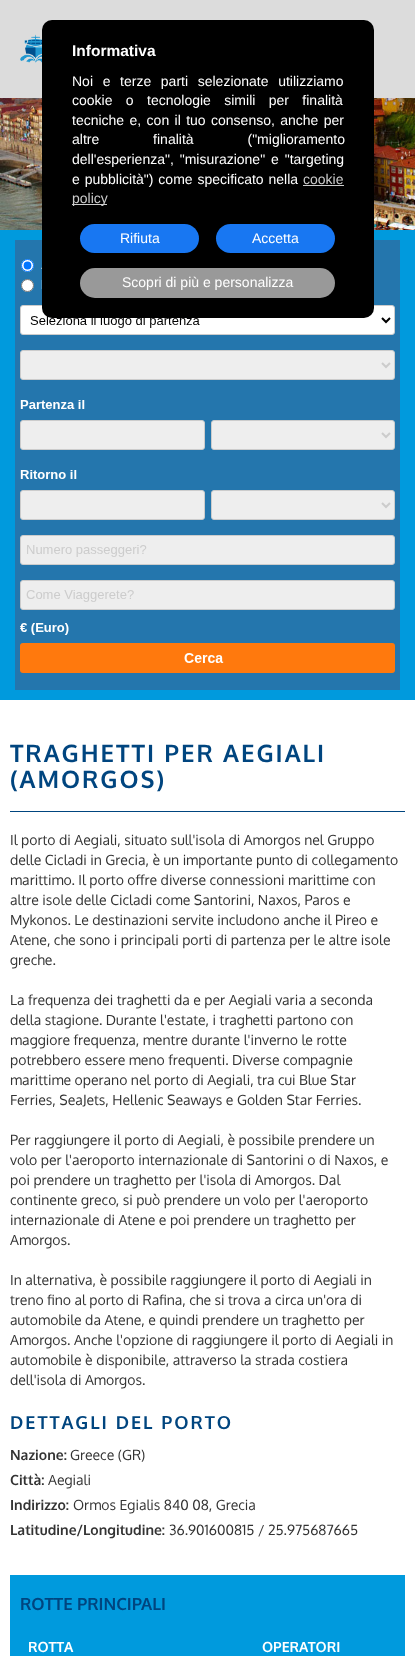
<svg xmlns="http://www.w3.org/2000/svg" width="415" height="1656">
	<rect width="100%" height="100%" fill="#FFFFFF" />
	<rect x="0" y="0" width="415" height="98" fill="#DCDCDC" />
	<image x="20" y="34" width="22" height="29" href="assets/img1.png" />
	<image x="0" y="98" width="415" height="132" href="assets/img2.png" />
	<rect x="0" y="230" width="415" height="470" fill="#009ADD" />
	<rect x="15" y="240" width="385" height="450" fill="#2476AD" />
	<image x="20" y="259" width="375" height="414" href="assets/img3.png" />
	<rect x="42" y="20" width="332" height="298" rx="10" fill="#000000" />
	<text x="72" y="56" font-family="Liberation Sans" font-size="15.5" font-weight="700" fill="#FFFFFF">Informativa</text>
	<g font-family="Liberation Sans" font-size="14" fill="#FFFFFF">
		<text x="72" y="86" word-spacing="5.75">Noi e terze parti selezionate utilizziamo</text>
		<text x="72" y="105" word-spacing="9.5">cookie o tecnologie simili per finalità</text>
		<text x="72" y="125" word-spacing="1.5">tecniche e, con il tuo consenso, anche per</text>
		<text x="72" y="144" word-spacing="50">altre finalità ("miglioramento</text>
		<text x="72" y="164" word-spacing="2">dell'esperienza", "misurazione" e "targeting</text>
		<text x="72" y="184" word-spacing="1">e pubblicità") come specificato nella</text>
	</g>
	<text x="303" y="184" font-family="Liberation Sans" font-size="14" fill="#CCCCCC">cookie</text>
	<rect x="303" y="185" width="41" height="1" fill="#CCCCCC" />
	<rect x="72" y="204" width="35" height="1" fill="#CCCCCC" />
	<text x="72" y="203" font-family="Liberation Sans" font-size="14" fill="#CCCCCC">policy</text>
	<rect x="80" y="224" width="119" height="29" rx="14.5" fill="#1877F2" />
	<text x="120" y="243" font-family="Liberation Sans" font-size="14" fill="#FFFFFF">Rifiuta</text>
	<rect x="216" y="224" width="119" height="29" rx="14.5" fill="#1877F2" />
	<text x="252" y="243" font-family="Liberation Sans" font-size="14" fill="#FFFFFF">Accetta</text>
	<rect x="80" y="268" width="255" height="30" rx="15" fill="#999999" />
	<text x="122" y="287" font-family="Liberation Sans" font-size="14" fill="#FFFFFF">Scopri di più e personalizza</text>
	<rect x="10" y="811" width="395" height="1" fill="#00457F" />
	<g font-family="Oxygen" font-size="24" font-weight="700" letter-spacing="2" fill="#00457F">
		<text x="10" y="762">TRAGHETTI PER AEGIALI</text>
		<text x="10" y="788">(AMORGOS)</text>
	</g>
	<g font-family="Oxygen" font-size="14" fill="#333333">
		<text x="10" y="845">Il porto di Aegiali, situato sull'isola di Amorgos nel Gruppo</text>
		<text x="10" y="865">delle Cicladi in Grecia, è un importante punto di collegamento</text>
		<text x="10" y="885">marittimo. Il porto offre diverse connessioni marittime con</text>
		<text x="10" y="905">altre isole delle Cicladi come Santorini, Naxos, Paros e</text>
		<text x="10" y="925">Mykonos. Le destinazioni servite includono anche il Pireo e</text>
		<text x="10" y="945">Atene, che sono i principali porti di partenza per le altre isole</text>
		<text x="10" y="965">greche.</text>
		<text x="10" y="1005">La frequenza dei traghetti da e per Aegiali varia a seconda</text>
		<text x="10" y="1025">della stagione. Durante l'estate, i traghetti partono con</text>
		<text x="10" y="1045">maggiore frequenza, mentre durante l'inverno le rotte</text>
		<text x="10" y="1065">potrebbero essere meno frequenti. Diverse compagnie</text>
		<text x="10" y="1085">marittime operano nel porto di Aegiali, tra cui Blue Star</text>
		<text x="10" y="1105">Ferries, SeaJets, Hellenic Seaways e Golden Star Ferries.</text>
		<text x="10" y="1145">Per raggiungere il porto di Aegiali, è possibile prendere un</text>
		<text x="10" y="1165">volo per l'aeroporto internazionale di Santorini o di Naxos, e</text>
		<text x="10" y="1185">poi prendere un traghetto per l'isola di Amorgos. Dal</text>
		<text x="10" y="1205">continente greco, si può prendere un volo per l'aeroporto</text>
		<text x="10" y="1225">internazionale di Atene e poi prendere un traghetto per</text>
		<text x="10" y="1245">Amorgos.</text>
		<text x="10" y="1285">In alternativa, è possibile raggiungere il porto di Aegiali in</text>
		<text x="10" y="1305">treno fino al porto di Rafina, che si trova a circa un'ora di</text>
		<text x="10" y="1325">automobile da Atene, e quindi prendere un traghetto per</text>
		<text x="10" y="1345">Amorgos. Anche l'opzione di raggiungere il porto di Aegiali in</text>
		<text x="10" y="1365">automobile è disponibile, attraverso la strada costiera</text>
		<text x="10" y="1385">dell'isola di Amorgos.</text>
	</g>
	<text x="10" y="1429" font-family="Oxygen" font-size="18" font-weight="700" letter-spacing="2" fill="#00457F">DETTAGLI DEL PORTO</text>
	<text x="10" y="1460" font-family="Oxygen" font-size="14" font-weight="700" fill="#333333">Nazione:</text>
	<text x="70" y="1460" font-family="Oxygen" font-size="14" fill="#333333">Greece (GR)</text>
	<text x="10" y="1485" font-family="Oxygen" font-size="14" font-weight="700" fill="#333333">Città:</text>
	<text x="48" y="1485" font-family="Oxygen" font-size="14" fill="#333333">Aegiali</text>
	<text x="10" y="1510" font-family="Oxygen" font-size="14" font-weight="700" fill="#333333">Indirizzo:</text>
	<text x="73" y="1510" font-family="Oxygen" font-size="14" fill="#333333">Ormos Egialis 840 08, Grecia</text>
	<text x="10" y="1535" font-family="Oxygen" font-size="14" font-weight="700" fill="#333333">Latitudine/Longitudine:</text>
	<text x="169" y="1535" font-family="Oxygen" font-size="14" fill="#333333">36.901600815 / 25.975687665</text>
	<rect x="10" y="1575" width="395" height="81" fill="#009ADD" />
	<text x="20" y="1610" font-family="Oxygen" font-size="16.75" font-weight="700" fill="#00457F">ROTTE PRINCIPALI</text>
	<g font-family="Oxygen" font-size="14" font-weight="700" fill="#FFFFFF">
		<text x="28" y="1652">ROTTA</text>
		<text x="262" y="1652">OPERATORI</text>
	</g>
</svg>
